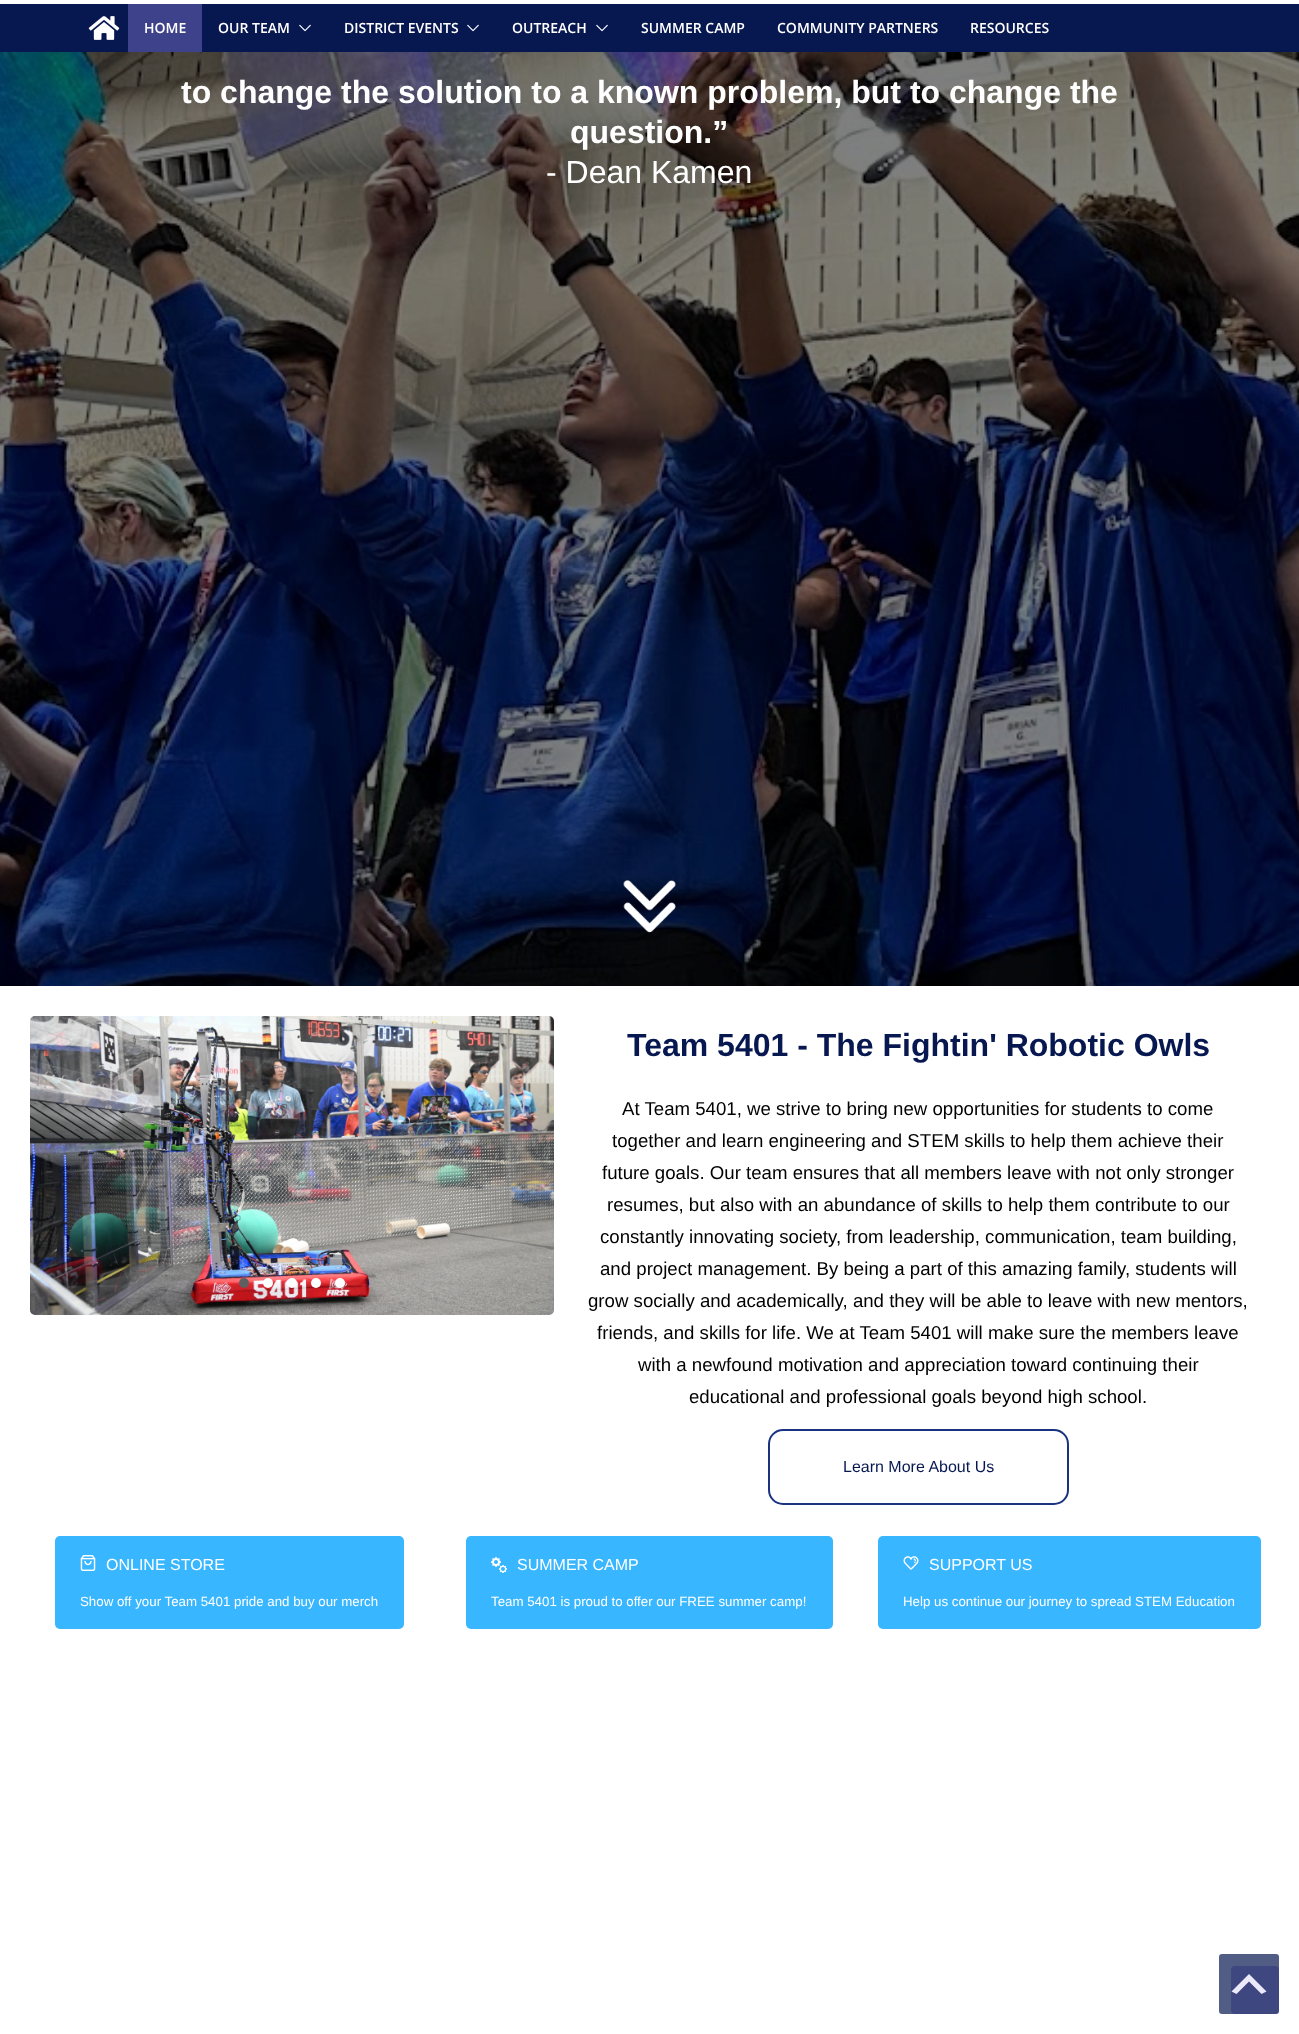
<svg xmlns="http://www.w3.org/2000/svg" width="1299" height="2034">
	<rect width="100%" height="100%" fill="#FFFFFF" />
	<rect x="0" y="4" width="1299" height="48" fill="#071851" />
	<image x="88" y="16" width="32" height="24" href="assets/img1.png" />
	<rect x="128" y="4" width="74" height="48" fill="#3D428B" />
	<g font-family="Open Sans" font-size="14" font-weight="600" fill="#FFFFFF">
		<text x="144" y="33">HOME</text>
		<text x="218" y="33">OUR TEAM</text>
	</g>
	<image x="299" y="24" width="12" height="8" href="assets/img2.png" />
	<text x="344" y="33" font-family="Open Sans" font-size="14" font-weight="600" fill="#FFFFFF">DISTRICT EVENTS</text>
	<image x="467" y="24" width="12" height="8" href="assets/img2.png" />
	<text x="512" y="33" font-family="Open Sans" font-size="14" font-weight="600" fill="#FFFFFF">OUTREACH</text>
	<image x="596" y="24" width="12" height="8" href="assets/img2.png" />
	<g font-family="Open Sans" font-size="14" font-weight="600" fill="#FFFFFF">
		<text x="641" y="33">SUMMER CAMP</text>
		<text x="777" y="33">COMMUNITY PARTNERS</text>
		<text x="970" y="33">RESOURCES</text>
	</g>
	<image x="0" y="52" width="1299" height="934" href="assets/img3.png" />
	<g font-family="Liberation Sans" font-size="32" font-weight="700" fill="#FFFFFF">
		<text x="181" y="103">to change the solution to a known problem, but to change the</text>
		<text x="570" y="143">question.”</text>
	</g>
	<text x="546" y="183" font-family="Liberation Sans" font-size="32" fill="#FFFFFF">- Dean Kamen</text>
	<image x="623" y="880" width="53" height="53" href="assets/img4.png" />
	<image x="30" y="1016" width="524" height="299" href="assets/img5.png" />
	<circle cx="244" cy="1283" r="5" fill="#5F5F5F" />
	<circle cx="268" cy="1283" r="5" fill="#FFFFFF" />
	<circle cx="292" cy="1283" r="5" fill="#FFFFFF" />
	<circle cx="316" cy="1283" r="5" fill="#FFFFFF" />
	<circle cx="340" cy="1283" r="5" fill="#FFFFFF" />
	<text x="627" y="1056" font-family="Liberation Sans" font-size="32" font-weight="700" fill="#071851">Team 5401 - The Fightin' Robotic Owls</text>
	<g font-family="Liberation Sans" font-size="18.65" fill="#000000">
		<text x="622" y="1115">At Team 5401, we strive to bring new opportunities for students to come</text>
		<text x="612" y="1147">together and learn engineering and STEM skills to help them achieve their</text>
		<text x="602" y="1179">future goals. Our team ensures that all members leave with not only stronger</text>
		<text x="607" y="1211">resumes, but also with an abundance of skills to help them contribute to our</text>
		<text x="600" y="1243">constantly innovating society, from leadership, communication, team building,</text>
		<text x="600" y="1275">and project management. By being a part of this amazing family, students will</text>
		<text x="588" y="1307">grow socially and academically, and they will be able to leave with new mentors,</text>
		<text x="597" y="1339">friends, and skills for life. We at Team 5401 will make sure the members leave</text>
		<text x="638" y="1371">with a newfound motivation and appreciation toward continuing their</text>
		<text x="689" y="1403">educational and professional goals beyond high school.</text>
	</g>
	<rect x="769" y="1430" width="299" height="74" rx="14" fill="none" stroke="#1A3282" stroke-width="2" />
	<text x="843" y="1472" font-family="Liberation Sans" font-size="16" fill="#071851">Learn More About Us</text>
	<rect x="55" y="1536" width="349" height="93" rx="5" fill="#38B6FF" />
	<image x="80" y="1555" width="16" height="16" href="assets/img6.png" />
	<text x="106" y="1570" font-family="Liberation Sans" font-size="16" fill="#FFFFFF">ONLINE STORE</text>
	<text x="80" y="1606" font-family="Liberation Sans" font-size="13.3" fill="#FFFFFF">Show off your Team 5401 pride and buy our merch</text>
	<rect x="466" y="1536" width="367" height="93" rx="5" fill="#38B6FF" />
	<image x="491" y="1557" width="16" height="16" href="assets/img7.png" />
	<text x="517" y="1570" font-family="Liberation Sans" font-size="16" fill="#FFFFFF">SUMMER CAMP</text>
	<text x="491" y="1606" font-family="Liberation Sans" font-size="13.3" fill="#FFFFFF">Team 5401 is proud to offer our FREE summer camp!</text>
	<rect x="878" y="1536" width="383" height="93" rx="5" fill="#38B6FF" />
	<image x="903" y="1556" width="16" height="14" href="assets/img8.png" />
	<text x="929" y="1570" font-family="Liberation Sans" font-size="16" fill="#FFFFFF">SUPPORT US</text>
	<text x="903" y="1606" font-family="Liberation Sans" font-size="13.3" fill="#FFFFFF">Help us continue our journey to spread STEM Education</text>
	<rect x="1231" y="1966" width="48" height="48" rx="4" fill="#C1B4EF" />
	<rect x="1219" y="1954" width="60" height="60" rx="3" fill="#071851" fill-opacity="0.7" />
	<path d="M1261.5 1994L1249 1981.5L1236.5 1994L1231.5 1991.5L1249 1974L1266.5 1991.5Z" fill="#ECE9FA" />
</svg>
